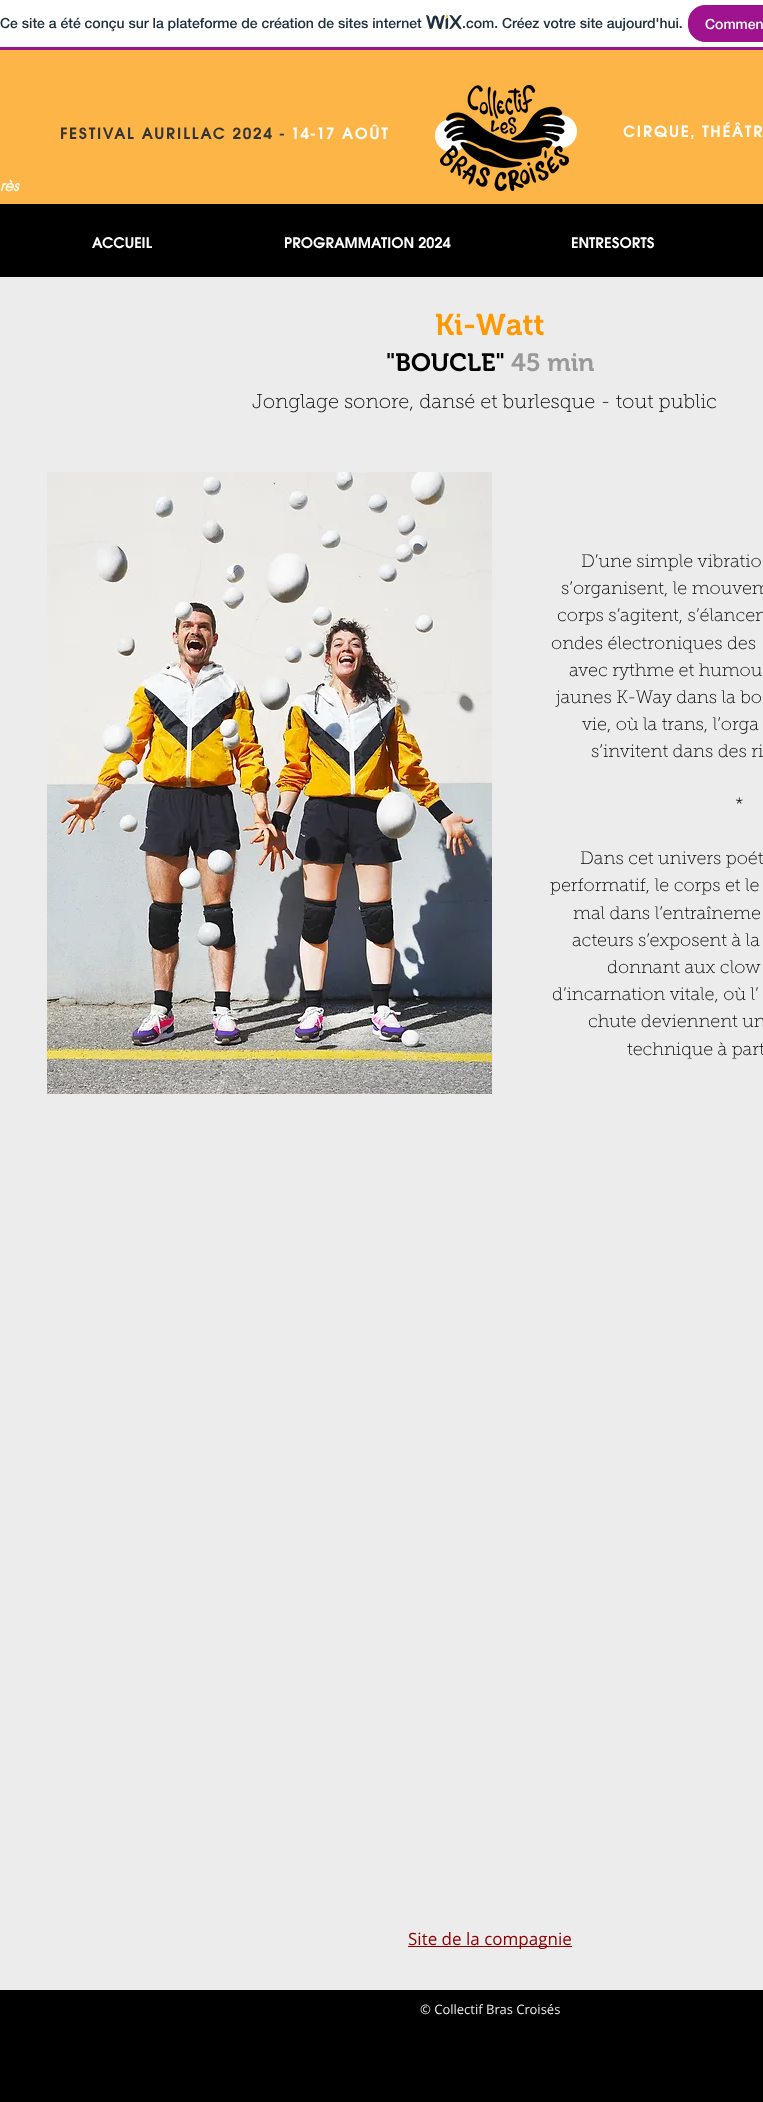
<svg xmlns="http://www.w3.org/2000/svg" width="763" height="2102">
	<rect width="100%" height="100%" fill="#FFFFFF" />
	<rect x="0" y="47" width="763" height="3" fill="#A0138E" />
	<text x="0" y="28" font-family="'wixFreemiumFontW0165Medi'" font-size="14" font-weight="500" fill="#20303C">Ce site a été conçu sur la plateforme de création de sites internet</text>
	<image x="426" y="15" width="36" height="15" href="assets/img1.png" />
	<text x="462" y="28" font-family="'wixFreemiumFontW0165Medi'" font-size="14" font-weight="500" fill="#20303C">.com. Créez votre site aujourd'hui.</text>
	<rect x="688.5" y="5.5" width="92" height="36" rx="16.5" fill="#A0138E" stroke="#A0138E" />
	<text x="705" y="29" font-family="'wixFreemiumFontW0165Medi'" font-size="14" font-weight="500" fill="#FFFFFF">Commen</text>
	<rect x="0" y="50" width="763" height="154" fill="#FDB548" />
	<text x="60" y="139" font-family="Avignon" font-size="17" font-weight="700" letter-spacing="1.7" fill="#333333">FESTIVAL AURILLAC 2024 -</text>
	<text x="291" y="139" font-family="Avignon" font-size="17" font-weight="700" letter-spacing="1.7" fill="#FFFFFF">14-17 AOÛT</text>
	<image x="435" y="119" width="33" height="33" href="assets/img3.png" />
	<image x="544" y="115" width="33" height="33" href="assets/img3.png" />
	<image x="440" y="85" width="129" height="106" href="assets/img2.png" />
	<text x="623" y="137" font-family="Avignon" font-size="17" font-weight="700" letter-spacing="1.7" fill="#FFFFFF">CIRQUE, THÉÂTR</text>
	<text x="0" y="191" font-family="Avignon" font-size="15" font-weight="700" font-style="italic" fill="#FFFFFF">rès</text>
	<rect x="0" y="204" width="763" height="1898" fill="#000000" />
	<g font-family="Avignon" font-size="16" font-weight="700" fill="#FFFFFF">
		<text x="92" y="248">ACCUEIL</text>
		<text x="284" y="248">PROGRAMMATION 2024</text>
		<text x="571" y="248">ENTRESORTS</text>
	</g>
	<rect x="0" y="277" width="763" height="1713" fill="#ECECEC" />
	<text x="435" y="335" font-family="'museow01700'" font-size="30" font-weight="600" fill="#FD9902">Ki-Watt</text>
	<text x="386" y="371" font-family="'museow01700'" font-size="25" font-weight="600" fill="#000000">"BOUCLE"</text>
	<text x="511" y="371" font-family="'museow01700'" font-size="25" font-weight="600" fill="#999999">45 min</text>
	<text x="252" y="408" font-family="'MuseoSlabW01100'" font-size="20" font-weight="100" fill="#000000">Jonglage sonore, dansé et burlesque - tout public</text>
	<image x="47" y="472" width="445" height="622" href="assets/img4.png" />
	<g font-family="'MuseoSlabW01100'" font-size="18" font-weight="100" fill="#000000">
		<text x="581" y="567">D’une simple vibratio</text>
		<text x="561" y="594">s’organisent, le mouvem</text>
		<text x="557" y="621">corps s’agitent, s’élancen</text>
		<text x="551" y="649">ondes électroniques des</text>
		<text x="569" y="676">avec rythme et humou</text>
		<text x="556" y="703">jaunes K-Way dans la bo</text>
		<text x="582" y="730">vie, où la trans, l’orga</text>
		<text x="591" y="757">s’invitent dans des ri</text>
		<text x="735" y="810">*</text>
		<text x="580" y="864">Dans cet univers poét</text>
		<text x="550" y="891">performatif, le corps et le</text>
		<text x="573" y="919">mal dans l’entraîneme</text>
		<text x="572" y="946">acteurs s’exposent à la</text>
		<text x="607" y="973">donnant aux clow</text>
		<text x="552" y="1000">d’incarnation vitale, où l’</text>
		<text x="588" y="1027">chute deviennent un</text>
		<text x="627" y="1055">technique à part</text>
	</g>
	<rect x="408" y="1946" width="164" height="1" fill="#8B0000" />
	<text x="408" y="1945" font-family="Open Sans" font-size="17" fill="#8B0000">Site de la compagnie</text>
	<text x="420" y="2014" font-family="Open Sans" font-size="13" fill="#ECECEC">© Collectif Bras Croisés</text>
</svg>
